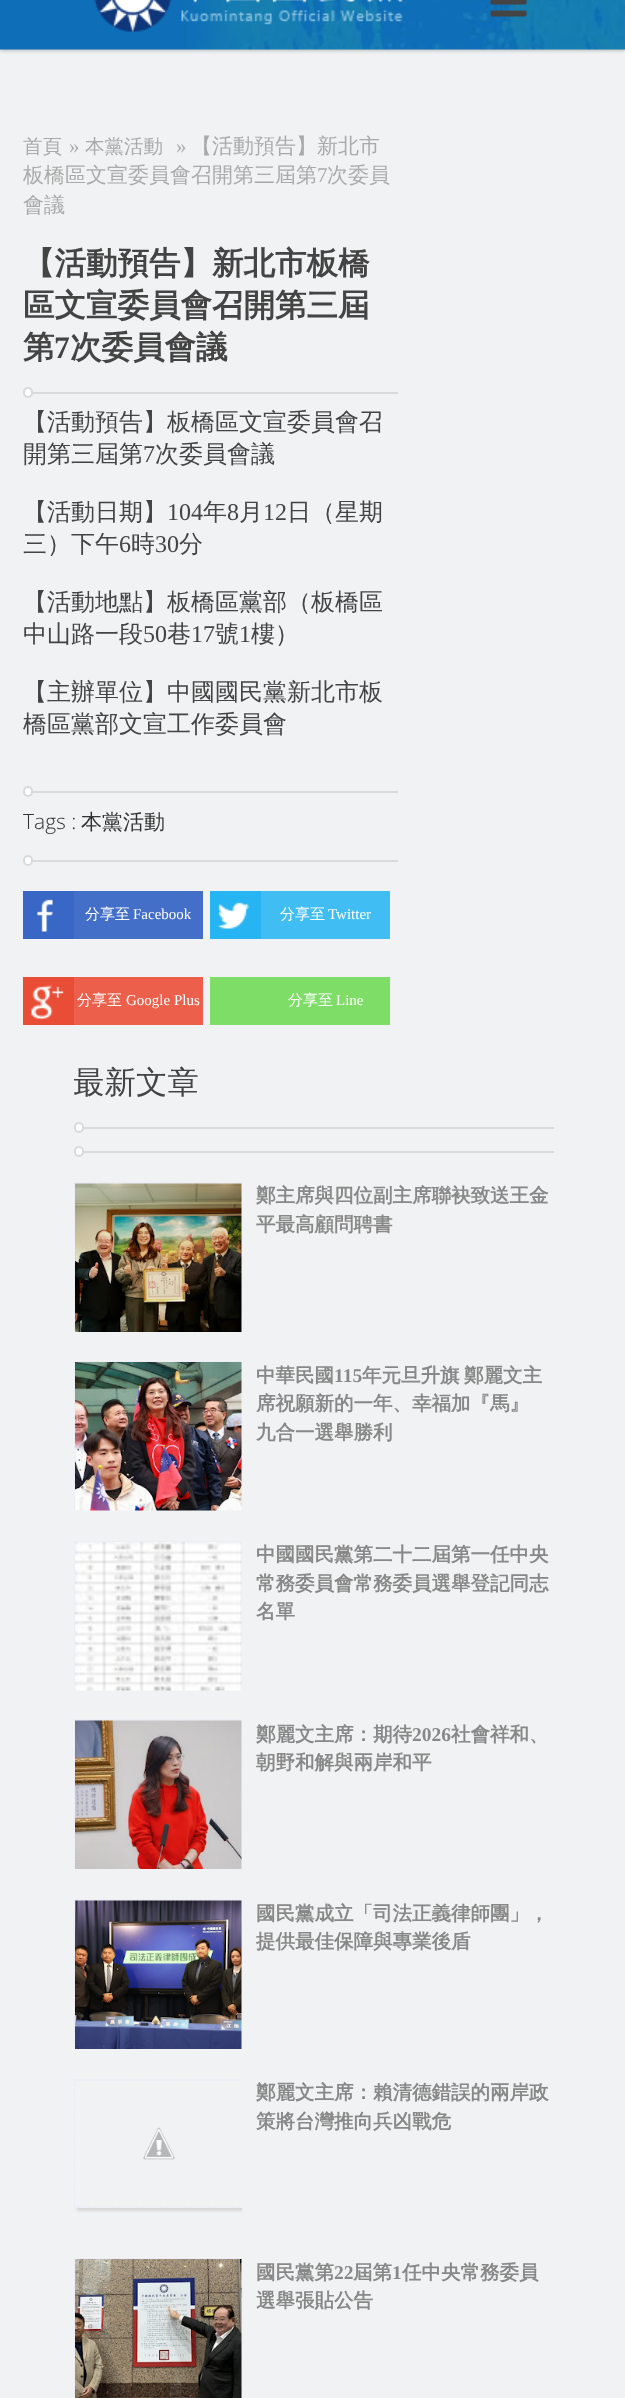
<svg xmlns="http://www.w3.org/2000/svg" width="625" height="2398">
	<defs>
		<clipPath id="clip1"><rect x="74" y="1062" width="480" height="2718" /></clipPath>
		<clipPath id="clip2"><rect x="74" y="1182" width="168" height="150" /></clipPath>
		<clipPath id="clip3"><rect x="74" y="1361" width="168" height="150" /></clipPath>
		<clipPath id="clip4"><rect x="74" y="1541" width="168" height="150" /></clipPath>
		<clipPath id="clip5"><rect x="74" y="1719" width="168" height="150" /></clipPath>
		<clipPath id="clip6"><rect x="74" y="1899" width="168" height="150" /></clipPath>
		<clipPath id="clip7"><rect x="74" y="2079" width="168" height="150" /></clipPath>
		<clipPath id="clip8"><rect x="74" y="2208" width="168" height="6" /></clipPath>
		<clipPath id="clip9"><rect x="74" y="2079" width="168" height="150" /></clipPath>
		<clipPath id="clip10"><rect x="74" y="2258" width="168" height="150" /></clipPath>
	</defs>
	<rect width="100%" height="100%" fill="#F1F2F3" />
	<rect x="0" y="-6" width="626" height="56" fill="#000000" fill-opacity="0.3" filter="blur(2px)" />
	<image x="0" y="0" width="625" height="50" href="assets/img1.png" />
	<image x="94" y="0" width="309" height="32" href="assets/img2.png" />
	<image x="490" y="0" width="37" height="17" href="assets/img3.png" />
	<text x="23" y="153" font-family="WenQuanYi Zen Hei" font-size="19.5" font-weight="500" fill="#AAAAAA">首頁</text>
	<text x="69" y="153" font-family="Liberation Serif" font-size="21" fill="#AAAAAA">»</text>
	<text x="85" y="153" font-family="WenQuanYi Zen Hei" font-size="19.5" font-weight="500" fill="#AAAAAA">本黨活動</text>
	<text x="176" y="153" font-family="Liberation Serif" font-size="21" fill="#AAAAAA">»</text>
	<g font-family="WenQuanYi Zen Hei" font-size="21" font-weight="500" fill="#AAAAAA">
		<text x="191" y="153">【活動預告】新北市</text>
		<text x="23" y="182">板橋區文宣委員會召開第三屆第</text>
	</g>
	<text x="317" y="182" font-family="Liberation Serif" font-size="21" fill="#AAAAAA">7</text>
	<g font-family="WenQuanYi Zen Hei" font-size="21" font-weight="500" fill="#AAAAAA">
		<text x="327" y="182">次委員</text>
		<text x="23" y="212">會議</text>
	</g>
	<g font-family="WenQuanYi Zen Hei" font-size="31.5" font-weight="700" fill="#444444">
		<text x="23" y="274">【活動預告】新北市板橋</text>
		<text x="23" y="316">區文宣委員會召開第三屆</text>
		<text x="23" y="358">第</text>
	</g>
	<text x="54" y="358" font-family="Liberation Serif" font-size="31.5" font-weight="700" fill="#444444">7</text>
	<text x="70" y="358" font-family="WenQuanYi Zen Hei" font-size="31.5" font-weight="700" fill="#444444">次委員會議</text>
	<rect x="23" y="392" width="375" height="2" fill="#DADADA" />
	<rect x="24" y="388" width="8" height="9" rx="4" fill="#FFFFFF" stroke="#DADADA" stroke-width="2" />
	<g font-family="WenQuanYi Zen Hei" font-size="24" font-weight="500" fill="#444444">
		<text x="23" y="430">【活動預告】板橋區文宣委員會召</text>
		<text x="23" y="462">開第三屆第</text>
	</g>
	<text x="143" y="462" font-family="Liberation Serif" font-size="24" fill="#444444">7</text>
	<g font-family="WenQuanYi Zen Hei" font-size="24" font-weight="500" fill="#444444">
		<text x="155" y="462">次委員會議</text>
		<text x="23" y="520">【活動日期】</text>
	</g>
	<text x="167" y="520" font-family="Liberation Serif" font-size="24" fill="#444444">104</text>
	<text x="203" y="520" font-family="WenQuanYi Zen Hei" font-size="24" font-weight="500" fill="#444444">年</text>
	<text x="227" y="520" font-family="Liberation Serif" font-size="24" fill="#444444">8</text>
	<text x="239" y="520" font-family="WenQuanYi Zen Hei" font-size="24" font-weight="500" fill="#444444">月</text>
	<text x="263" y="520" font-family="Liberation Serif" font-size="24" fill="#444444">12</text>
	<g font-family="WenQuanYi Zen Hei" font-size="24" font-weight="500" fill="#444444">
		<text x="287" y="520">日（星期</text>
		<text x="23" y="552">三）下午</text>
	</g>
	<text x="119" y="552" font-family="Liberation Serif" font-size="24" fill="#444444">6</text>
	<text x="131" y="552" font-family="WenQuanYi Zen Hei" font-size="24" font-weight="500" fill="#444444">時</text>
	<text x="155" y="552" font-family="Liberation Serif" font-size="24" fill="#444444">30</text>
	<g font-family="WenQuanYi Zen Hei" font-size="24" font-weight="500" fill="#444444">
		<text x="179" y="552">分</text>
		<text x="23" y="610">【活動地點】板橋區黨部（板橋區</text>
		<text x="23" y="642">中山路一段</text>
	</g>
	<text x="143" y="642" font-family="Liberation Serif" font-size="24" fill="#444444">50</text>
	<text x="167" y="642" font-family="WenQuanYi Zen Hei" font-size="24" font-weight="500" fill="#444444">巷</text>
	<text x="191" y="642" font-family="Liberation Serif" font-size="24" fill="#444444">17</text>
	<text x="215" y="642" font-family="WenQuanYi Zen Hei" font-size="24" font-weight="500" fill="#444444">號</text>
	<text x="239" y="642" font-family="Liberation Serif" font-size="24" fill="#444444">1</text>
	<g font-family="WenQuanYi Zen Hei" font-size="24" font-weight="500" fill="#444444">
		<text x="251" y="642">樓）</text>
		<text x="23" y="700">【主辦單位】中國國民黨新北市板</text>
		<text x="23" y="732">橋區黨部文宣工作委員會</text>
	</g>
	<rect x="23" y="791" width="375" height="2" fill="#DADADA" />
	<rect x="24" y="787" width="8" height="9" rx="4" fill="#FFFFFF" stroke="#DADADA" stroke-width="2" />
	<text x="23" y="829" font-family="Open Sans" font-size="21" font-weight="300" fill="#333333">Tags :</text>
	<text x="81" y="829" font-family="WenQuanYi Zen Hei" font-size="21" font-weight="500" fill="#333333">本黨活動</text>
	<rect x="23" y="860" width="375" height="2" fill="#DADADA" />
	<rect x="24" y="856" width="8" height="9" rx="4" fill="#FFFFFF" stroke="#DADADA" stroke-width="2" />
	<rect x="74" y="891" width="129" height="48" fill="#436FC9" />
	<rect x="23" y="891" width="51" height="48" fill="#3967C6" />
	<image x="37" y="899" width="16" height="33" href="assets/img4.png" />
	<text x="85" y="919" font-family="WenQuanYi Zen Hei" font-size="15" font-weight="500" fill="#FFFFFF">分享至</text>
	<text x="133" y="919" font-family="Liberation Serif" font-size="15" fill="#FFFFFF">Facebook</text>
	<rect x="261" y="891" width="129" height="48" fill="#40BEF4" />
	<rect x="210" y="891" width="51" height="48" fill="#26B5F2" />
	<image x="217" y="902" width="33" height="27" href="assets/img5.png" />
	<text x="280" y="919" font-family="WenQuanYi Zen Hei" font-size="15" font-weight="500" fill="#FFFFFF">分享至</text>
	<text x="328" y="919" font-family="Liberation Serif" font-size="15" fill="#FFFFFF">Twitter</text>
	<rect x="74" y="977" width="129" height="48" fill="#EC5F4A" />
	<rect x="23" y="977" width="51" height="48" fill="#E94D36" />
	<image x="31" y="985" width="33" height="35" href="assets/img6.png" />
	<text x="77" y="1005" font-family="WenQuanYi Zen Hei" font-size="15" font-weight="500" fill="#FFFFFF">分享至</text>
	<text x="126" y="1005" font-family="Liberation Serif" font-size="15" fill="#FFFFFF">Google Plus</text>
	<rect x="210" y="977" width="180" height="48" fill="#7EDD67" />
	<text x="288" y="1005" font-family="WenQuanYi Zen Hei" font-size="15" font-weight="500" fill="#FFFFFF">分享至</text>
	<text x="336" y="1005" font-family="Liberation Serif" font-size="15" fill="#FFFFFF">Line</text>
	<g clip-path="url(#clip1)">
		<text x="73" y="1093" font-family="WenQuanYi Zen Hei" font-size="31.5" font-weight="500" fill="#444444">最新文章</text>
	</g>
	<rect x="74" y="1127" width="480" height="2" fill="#DADADA" />
	<rect x="75" y="1123" width="8" height="9" rx="4" fill="#FFFFFF" stroke="#DADADA" stroke-width="2" />
	<rect x="74" y="1151" width="480" height="2" fill="#DADADA" />
	<rect x="75" y="1147" width="8" height="9" rx="4" fill="#FFFFFF" stroke="#DADADA" stroke-width="2" />
	<g clip-path="url(#clip2)">
		<path d="M73.5 1183H244.5" fill="none" stroke="#E6E6FA" stroke-width="1.5" stroke-dasharray="1.5 1.5" />
		<path d="M74 1182V1353" fill="none" stroke="#E6E6FA" stroke-width="1.5" stroke-dasharray="1.5 1.5" />
	</g>
	<image x="75" y="1183" width="167" height="149" href="assets/img7.png" />
	<g font-family="WenQuanYi Zen Hei" font-size="19.5" font-weight="700" fill="#888888">
		<text x="256" y="1202">鄭主席與四位副主席聯袂致送王金</text>
		<text x="256" y="1231">平最高顧問聘書</text>
	</g>
	<g clip-path="url(#clip3)">
		<path d="M73.5 1361H244.5" fill="none" stroke="#E6E6FA" stroke-width="1.5" stroke-dasharray="1.5 1.5" />
		<path d="M74 1360.5V1531.5" fill="none" stroke="#E6E6FA" stroke-width="1.5" stroke-dasharray="1.5 1.5" />
	</g>
	<image x="75" y="1362" width="167" height="149" href="assets/img8.png" />
	<text x="256" y="1382" font-family="WenQuanYi Zen Hei" font-size="19.5" font-weight="700" fill="#888888">中華民國</text>
	<text x="334" y="1382" font-family="Liberation Serif" font-size="19.5" font-weight="700" fill="#888888">115</text>
	<g font-family="WenQuanYi Zen Hei" font-size="19.5" font-weight="700" fill="#888888">
		<text x="362" y="1382">年元旦升旗</text>
		<text x="464" y="1382">鄭麗文主</text>
		<text x="256" y="1410">席祝願新的一年、幸福加『馬』</text>
		<text x="256" y="1439">九合一選舉勝利</text>
	</g>
	<g clip-path="url(#clip4)">
		<path d="M73.5 1541H244.5" fill="none" stroke="#E6E6FA" stroke-width="1.5" stroke-dasharray="1.5 1.5" />
		<path d="M74 1540.5V1711.5" fill="none" stroke="#E6E6FA" stroke-width="1.5" stroke-dasharray="1.5 1.5" />
	</g>
	<image x="75" y="1542" width="167" height="149" href="assets/img9.png" />
	<g font-family="WenQuanYi Zen Hei" font-size="19.5" font-weight="700" fill="#888888">
		<text x="256" y="1561">中國國民黨第二十二屆第一任中央</text>
		<text x="256" y="1590">常務委員會常務委員選舉登記同志</text>
		<text x="256" y="1618">名單</text>
	</g>
	<g clip-path="url(#clip5)">
		<path d="M73.5 1720H244.5" fill="none" stroke="#E6E6FA" stroke-width="1.5" stroke-dasharray="1.5 1.5" />
		<path d="M74 1719V1890" fill="none" stroke="#E6E6FA" stroke-width="1.5" stroke-dasharray="1.5 1.5" />
	</g>
	<image x="75" y="1720" width="167" height="149" href="assets/img10.png" />
	<text x="256" y="1741" font-family="WenQuanYi Zen Hei" font-size="19.5" font-weight="700" fill="#888888">鄭麗文主席：期待</text>
	<text x="412" y="1741" font-family="Liberation Serif" font-size="19.5" font-weight="700" fill="#888888">2026</text>
	<g font-family="WenQuanYi Zen Hei" font-size="19.5" font-weight="700" fill="#888888">
		<text x="451" y="1741">社會祥和、</text>
		<text x="256" y="1769">朝野和解與兩岸和平</text>
	</g>
	<g clip-path="url(#clip6)">
		<path d="M73.5 1900H244.5" fill="none" stroke="#E6E6FA" stroke-width="1.5" stroke-dasharray="1.5 1.5" />
		<path d="M74 1899V2070" fill="none" stroke="#E6E6FA" stroke-width="1.5" stroke-dasharray="1.5 1.5" />
	</g>
	<image x="75" y="1900" width="167" height="149" href="assets/img11.png" />
	<g font-family="WenQuanYi Zen Hei" font-size="19.5" font-weight="700" fill="#888888">
		<text x="256" y="1920">國民黨成立「司法正義律師團」，</text>
		<text x="256" y="1948">提供最佳保障與專業後盾</text>
	</g>
	<g clip-path="url(#clip7)">
		<g clip-path="url(#clip8)">
			<rect x="77" y="2082" width="171" height="129" fill="#D6D6D6" filter="blur(1.5px)" />
		</g>
	</g>
	<g clip-path="url(#clip9)">
		<path d="M73.5 2080H244.5" fill="none" stroke="#E6E6FA" stroke-width="1.5" stroke-dasharray="1.5 1.5" />
		<path d="M73.5 2207H244.5" fill="none" stroke="#E6E6FA" stroke-width="1.5" stroke-dasharray="1.5 1.5" />
		<path d="M74 2079V2208" fill="none" stroke="#E6E6FA" stroke-width="1.5" stroke-dasharray="1.5 1.5" />
	</g>
	<image x="143" y="2127" width="32" height="33" href="assets/img12.png" />
	<g font-family="WenQuanYi Zen Hei" font-size="19.5" font-weight="700" fill="#888888">
		<text x="256" y="2099">鄭麗文主席：賴清德錯誤的兩岸政</text>
		<text x="256" y="2128">策將台灣推向兵凶戰危</text>
	</g>
	<g clip-path="url(#clip10)">
		<path d="M73.5 2258H244.5" fill="none" stroke="#E6E6FA" stroke-width="1.5" stroke-dasharray="1.5 1.5" />
		<path d="M74 2257.5V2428.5" fill="none" stroke="#E6E6FA" stroke-width="1.5" stroke-dasharray="1.5 1.5" />
	</g>
	<image x="75" y="2259" width="167" height="139" href="assets/img13.png" />
	<text x="256" y="2279" font-family="WenQuanYi Zen Hei" font-size="19.5" font-weight="700" fill="#888888">國民黨第</text>
	<text x="334" y="2279" font-family="Liberation Serif" font-size="19.5" font-weight="700" fill="#888888">22</text>
	<text x="353" y="2279" font-family="WenQuanYi Zen Hei" font-size="19.5" font-weight="700" fill="#888888">屆第</text>
	<text x="392" y="2279" font-family="Liberation Serif" font-size="19.5" font-weight="700" fill="#888888">1</text>
	<g font-family="WenQuanYi Zen Hei" font-size="19.5" font-weight="700" fill="#888888">
		<text x="402" y="2279">任中央常務委員</text>
		<text x="256" y="2307">選舉張貼公告</text>
	</g>
</svg>
